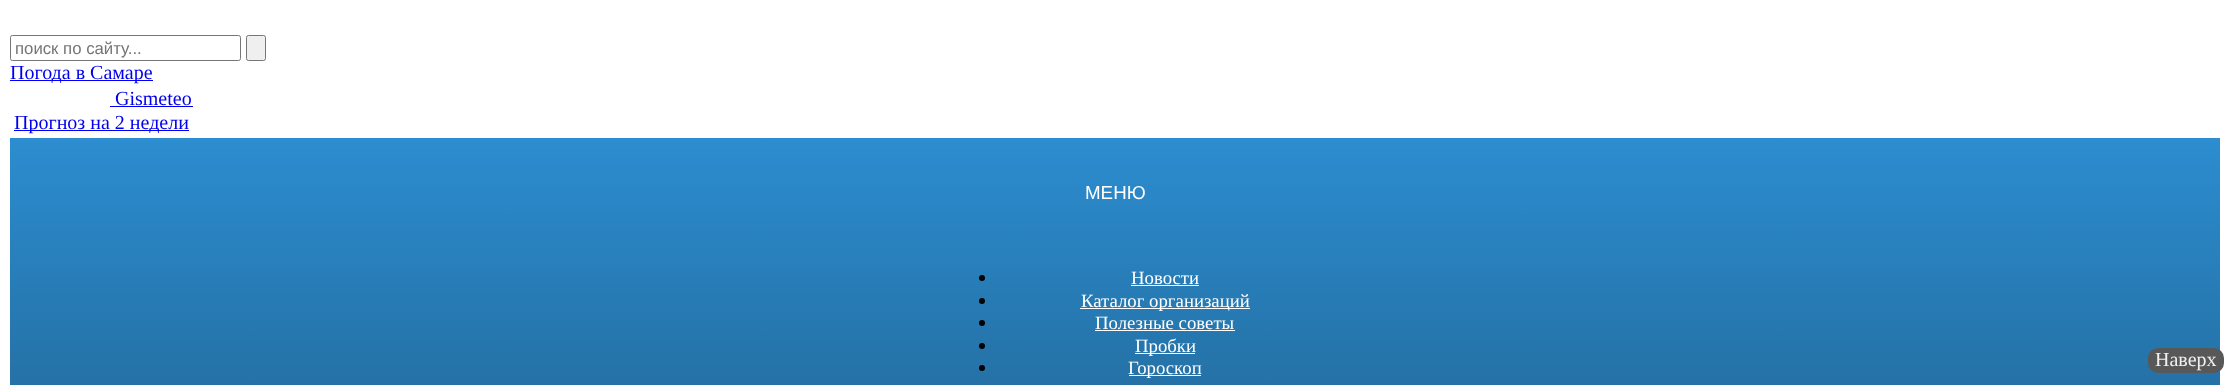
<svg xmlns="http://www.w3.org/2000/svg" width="2230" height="385">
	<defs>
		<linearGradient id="g1" gradientUnits="userSpaceOnUse" x1="1115" y1="137" x2="1115" y2="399"><stop offset="0" stop-color="#2C8DD0" /><stop offset="1" stop-color="#2470A4" /></linearGradient>
	</defs>
	<rect width="100%" height="100%" fill="#FFFFFF" />
	<rect x="10.5" y="35.5" width="230" height="25" rx="2" fill="none" stroke="#767676" />
	<text x="15" y="54" font-family="Liberation Sans" font-size="16.75" fill="#757575">поиск по сайту...</text>
	<rect x="246.5" y="35.5" width="19" height="25" rx="2" fill="#EFEFEF" stroke="#767676" />
	<rect x="10" y="80" width="143" height="1" fill="#0000EE" />
	<g font-family="Liberation Serif" font-size="20" fill="#0000EE">
		<text x="10" y="79">Погода в Самаре</text>
		<text x="115" y="105">Gismeteo</text>
	</g>
	<rect x="110" y="106" width="83" height="1" fill="#0000EE" />
	<rect x="14" y="130" width="175" height="1" fill="#0000EE" />
	<text x="14" y="129" font-family="Liberation Serif" font-size="20" fill="#0000EE">Прогноз на 2 недели</text>
	<rect x="10" y="138" width="2210" height="247" fill="url(#g1)" />
	<text x="1085" y="199" font-family="Liberation Sans" font-size="18.75" fill="#FFFFFF">МЕНЮ</text>
	<circle cx="982" cy="278" r="3" fill="#000000" />
	<text x="1131" y="284" font-family="Liberation Serif" font-size="18.75" fill="#FFFFFF">Новости</text>
	<rect x="1131" y="285" width="68" height="1" fill="#FFFFFF" />
	<circle cx="982" cy="301" r="3" fill="#000000" />
	<rect x="1080" y="308" width="170" height="1" fill="#FFFFFF" />
	<text x="1081" y="307" font-family="Liberation Serif" font-size="18.75" fill="#FFFFFF">Каталог организаций</text>
	<circle cx="982" cy="323" r="3" fill="#000000" />
	<text x="1095" y="329" font-family="Liberation Serif" font-size="18.75" fill="#FFFFFF">Полезные советы</text>
	<rect x="1095" y="330" width="140" height="1" fill="#FFFFFF" />
	<circle cx="982" cy="346" r="3" fill="#000000" />
	<rect x="1135" y="353" width="60" height="1" fill="#FFFFFF" />
	<text x="1135" y="352" font-family="Liberation Serif" font-size="18.75" fill="#FFFFFF">Пробки</text>
	<circle cx="982" cy="368" r="3" fill="#000000" />
	<rect x="1129" y="375" width="72" height="1" fill="#FFFFFF" />
	<text x="1128" y="374" font-family="Liberation Serif" font-size="18.75" fill="#FFFFFF">Гороскоп</text>
	<rect x="2148" y="348" width="76" height="25" rx="10" fill="#585858" />
	<text x="2155" y="366" font-family="Liberation Serif" font-size="20" fill="#F1F1F1">Наверх</text>
</svg>
